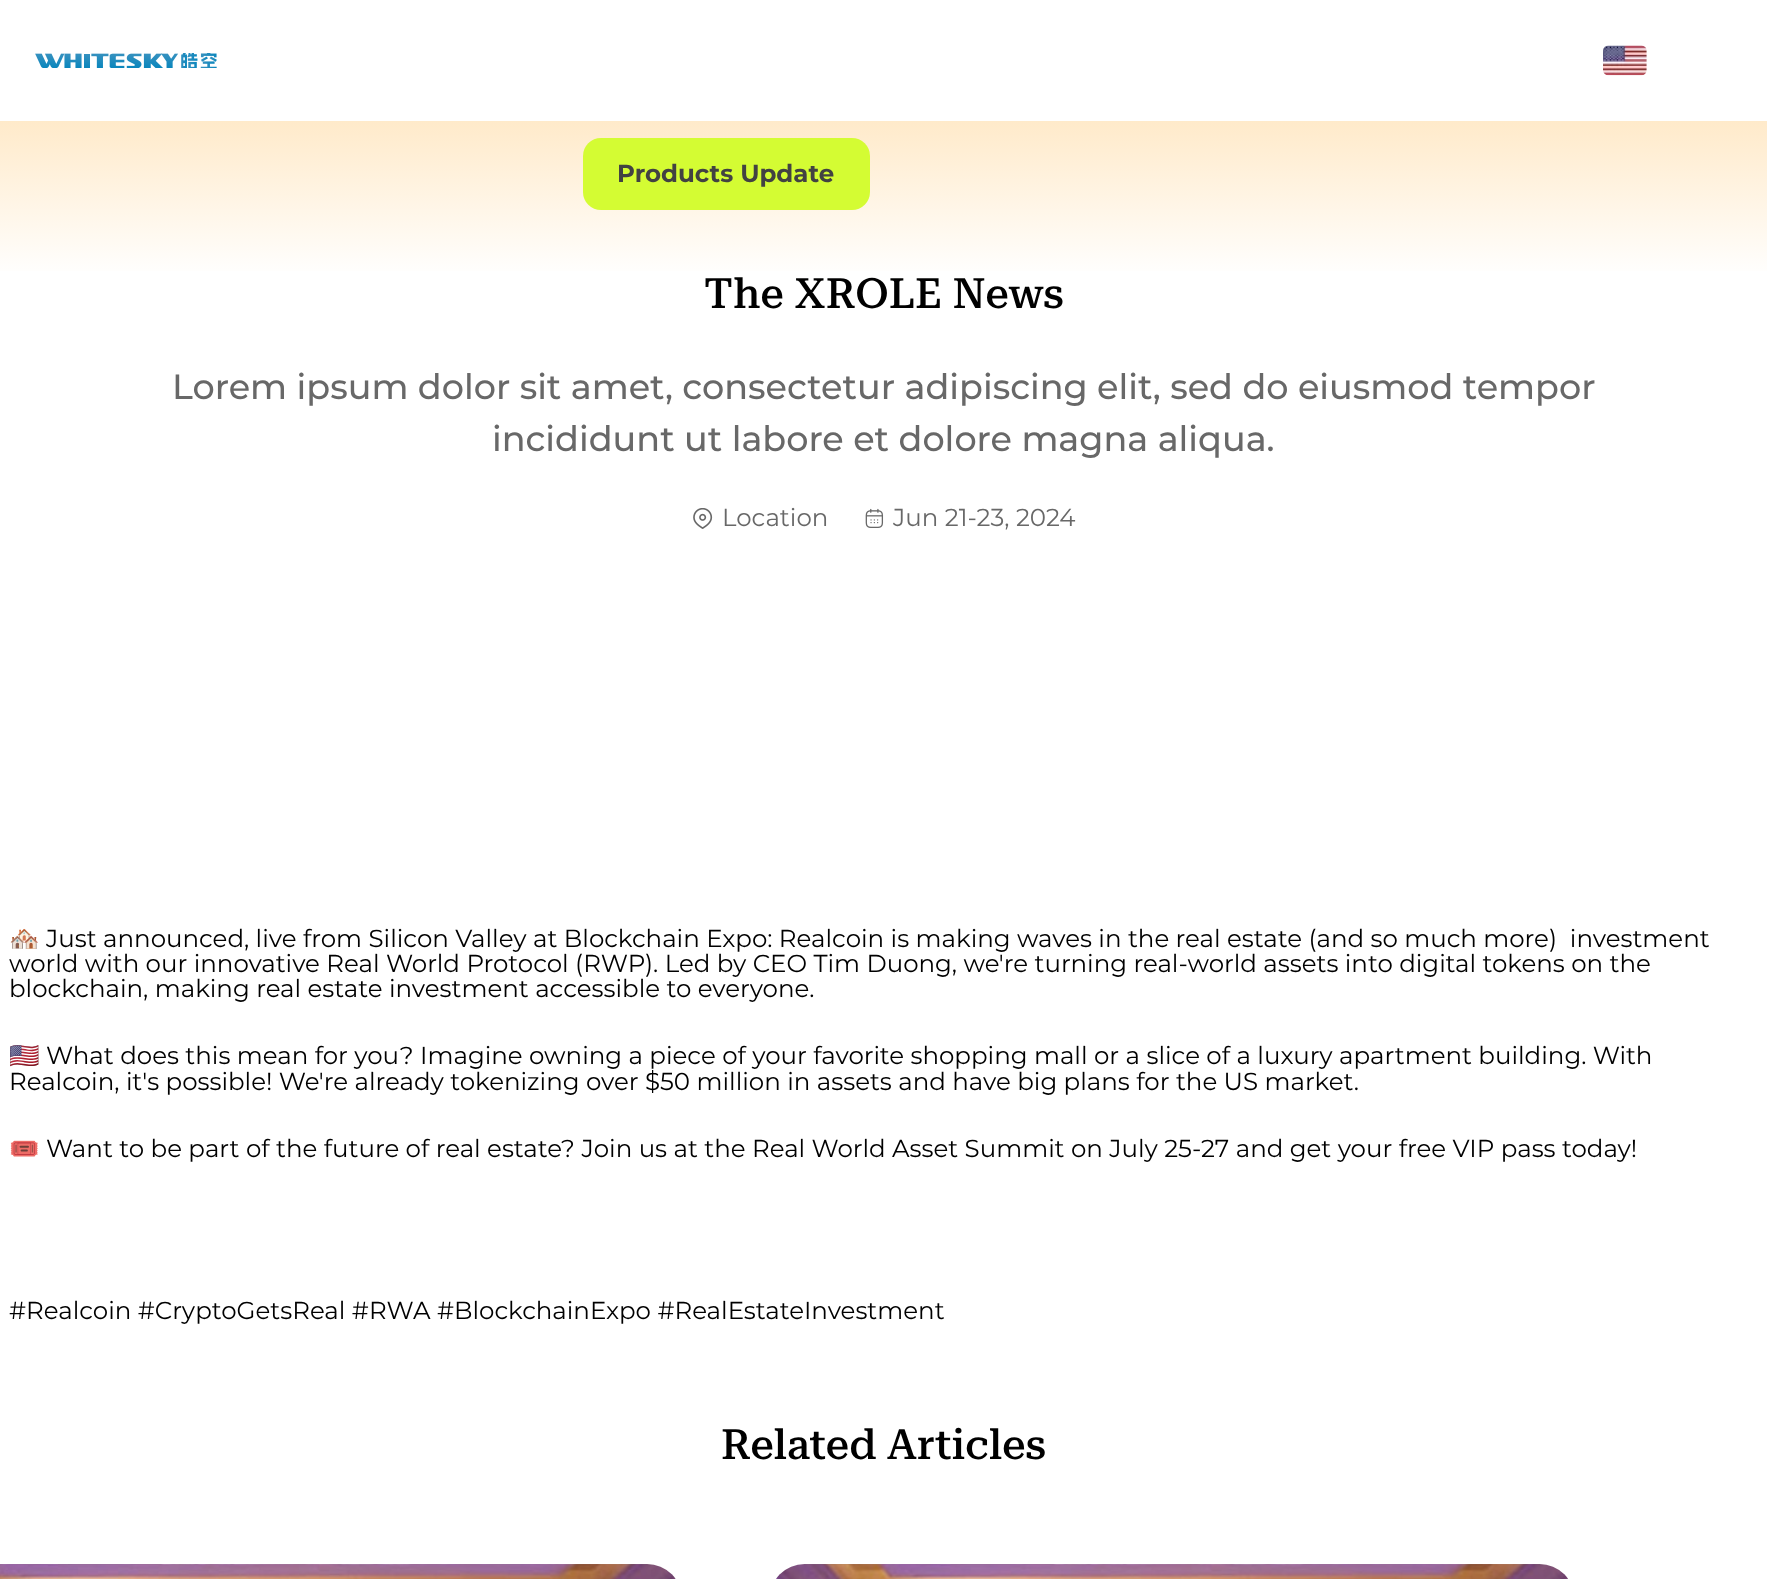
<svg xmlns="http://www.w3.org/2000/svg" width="1767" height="1579">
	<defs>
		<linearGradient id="g1" gradientUnits="userSpaceOnUse" x1="884" y1="121" x2="884" y2="278"><stop offset="0" stop-color="#FFEACA" /><stop offset="1" stop-color="#FFFFFF" /></linearGradient>
	</defs>
	<rect width="100%" height="100%" fill="#FFFFFF" />
	<image x="35" y="53" width="182" height="15" href="assets/img1.png" />
	<image x="1603" y="45" width="44" height="31" href="assets/img2.png" />
	<rect x="0" y="121" width="1767" height="150" fill="url(#g1)" />
	<rect x="583" y="138" width="287" height="72" rx="18" fill="#D4FC33" />
	<text x="617" y="182" font-family="Montserrat" font-size="24.5" font-weight="700" fill="#424242">Products Update</text>
	<text x="704" y="308" font-family="Roboto Serif" font-size="42" font-weight="500" fill="#000000">The XROLE News</text>
	<g font-family="Montserrat" font-size="35" font-weight="500" fill="#686868">
		<text x="172" y="399">Lorem ipsum dolor sit amet, consectetur adipiscing elit, sed do eiusmod tempor</text>
		<text x="492" y="451">incididunt ut labore et dolore magna aliqua.</text>
	</g>
	<image x="693" y="508" width="20" height="21" href="assets/img3.png" />
	<text x="722" y="526" font-family="Montserrat" font-size="24.5" fill="#686868">Location</text>
	<image x="865" y="508" width="19" height="20" href="assets/img4.png" />
	<text x="893" y="526" font-family="Montserrat" font-size="24.5" fill="#686868">Jun 21-23, 2024</text>
	<text x="9" y="947" font-family="Noto Color Emoji" font-size="24.5" fill="#000000">🏘️</text>
	<g font-family="Montserrat" font-size="24.5" fill="#000000">
		<text x="46" y="947" xml:space="preserve">Just announced, live from Silicon Valley at Blockchain Expo: Realcoin is making waves in the real estate (and so much more)  investment</text>
		<text x="9" y="972">world with our innovative Real World Protocol (RWP). Led by CEO Tim Duong, we're turning real-world assets into digital tokens on the</text>
		<text x="9" y="997">blockchain, making real estate investment accessible to everyone.</text>
	</g>
	<text x="9" y="1064" font-family="Noto Color Emoji" font-size="24.5" fill="#000000">🇺🇸</text>
	<g font-family="Montserrat" font-size="24.5" fill="#000000">
		<text x="46" y="1064">What does this mean for you? Imagine owning a piece of your favorite shopping mall or a slice of a luxury apartment building. With</text>
		<text x="9" y="1090">Realcoin, it's possible! We're already tokenizing over $50 million in assets and have big plans for the US market.</text>
	</g>
	<text x="9" y="1157" font-family="Noto Color Emoji" font-size="24.5" fill="#000000">🎟️</text>
	<g font-family="Montserrat" font-size="24.5" fill="#000000">
		<text x="46" y="1157">Want to be part of the future of real estate? Join us at the Real World Asset Summit on July 25-27 and get your free VIP pass today!</text>
		<text x="9" y="1319">#Realcoin #CryptoGetsReal #RWA #BlockchainExpo #RealEstateInvestment</text>
	</g>
	<text x="721" y="1459" font-family="Roboto Serif" font-size="42" font-weight="500" fill="#000000">Related Articles</text>
	<image x="0" y="1564" width="676" height="15" href="assets/img5.png" />
	<image x="776" y="1564" width="792" height="15" href="assets/img6.png" />
</svg>
